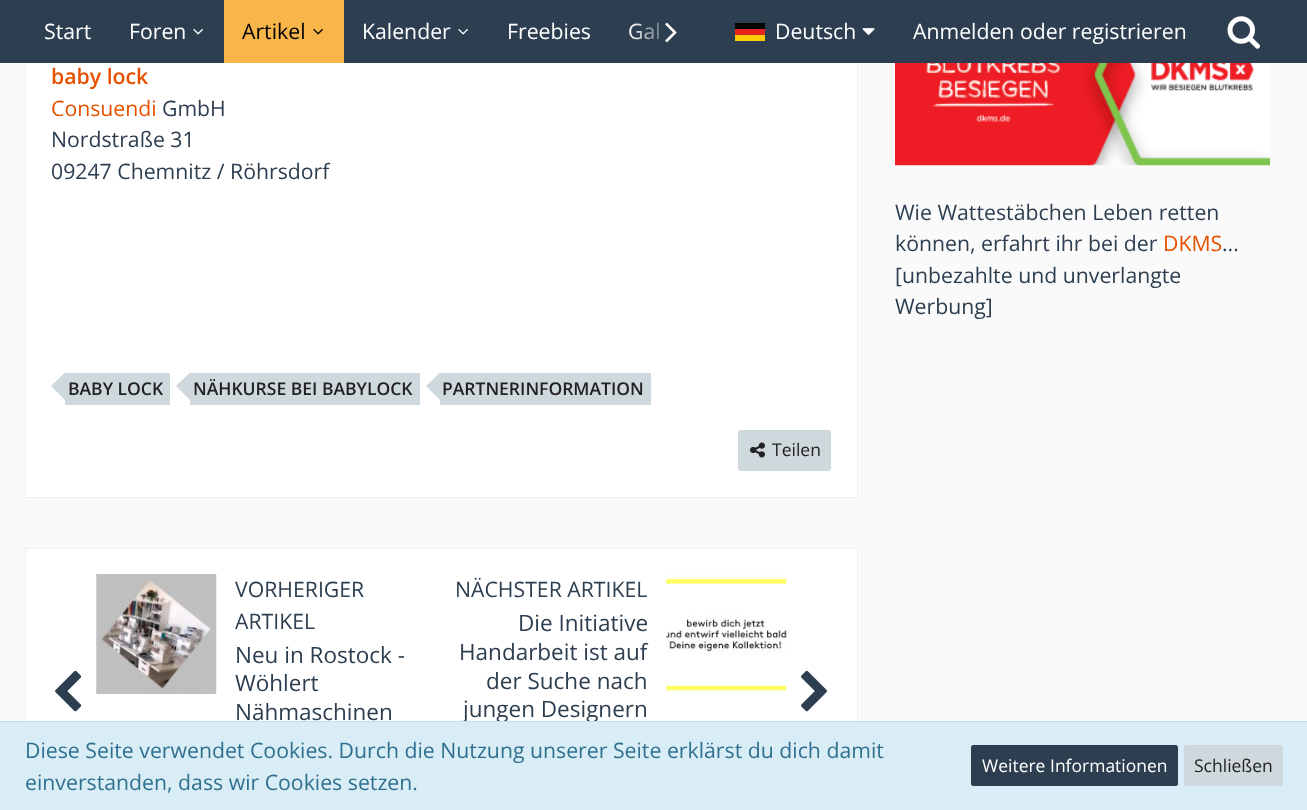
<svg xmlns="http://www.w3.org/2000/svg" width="1307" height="810">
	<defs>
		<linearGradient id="g1" gradientUnits="userSpaceOnUse" x1="629" y1="31" x2="691" y2="31"><stop offset="0" stop-color="#2C3E50" stop-opacity="0" /><stop offset="0.75" stop-color="#2C3E50" /></linearGradient>
	</defs>
	<rect width="100%" height="100%" fill="#FAFAFA" />
	<rect x="26" y="63" width="831" height="434" fill="#FFFFFF" />
	<rect x="25.5" y="-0.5" width="832" height="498" fill="none" stroke="#ECF1F7" />
	<rect x="0" y="0" width="1307" height="63" fill="#2C3E50" />
	<g font-family="Open Sans" font-size="21.25" fill="#FFFFFF">
		<text x="44" y="39">Start</text>
		<text x="129" y="39">Foren</text>
	</g>
	<image x="193" y="28" width="10" height="7" href="assets/img1.png" />
	<rect x="224" y="0" width="120" height="63" fill="#F7B54A" />
	<text x="242" y="39" font-family="Open Sans" font-size="21.25" fill="#000000">Artikel</text>
	<image x="313" y="28" width="10" height="7" href="assets/img2.png" />
	<text x="362" y="39" font-family="Open Sans" font-size="21.25" fill="#FFFFFF">Kalender</text>
	<image x="458" y="28" width="10" height="7" href="assets/img1.png" />
	<g font-family="Open Sans" font-size="21.25" fill="#FFFFFF">
		<text x="507" y="39">Freebies</text>
		<text x="628" y="39">Gal</text>
	</g>
	<rect x="630" y="22" width="30" height="18" fill="url(#g1)" />
	<image x="665" y="22" width="12" height="21" href="assets/img3.png" />
	<rect x="735" y="23" width="30" height="6" fill="#010202" />
	<rect x="735" y="35" width="30" height="6" fill="#FFCC04" />
	<rect x="735" y="29" width="30" height="6" fill="#E52420" />
	<text x="775" y="39" font-family="Open Sans" font-size="21.25" fill="#FFFFFF">Deutsch</text>
	<image x="862" y="28" width="13" height="7" href="assets/img4.png" />
	<text x="913" y="39" font-family="Open Sans" font-size="21.25" fill="#FFFFFF">Anmelden oder registrieren</text>
	<image x="1227" y="16" width="33" height="33" href="assets/img5.png" />
	<text x="51" y="84" font-family="Open Sans" font-size="21.25" font-weight="600" fill="#E65100">baby lock</text>
	<text x="51" y="116" font-family="Open Sans" font-size="21.25" fill="#E65100">Consuendi</text>
	<g font-family="Open Sans" font-size="21.25" fill="#2C3E50">
		<text x="162" y="116">GmbH</text>
		<text x="51" y="147">Nordstraße 31</text>
		<text x="51" y="179">09247 Chemnitz / Röhrsdorf</text>
	</g>
	<rect x="65" y="373" width="105" height="32" fill="#CFD8DC" />
	<path d="M65 372.5V400L51 386Z" fill="#CFD8DC" />
	<text x="68" y="395" font-family="Open Sans" font-size="17.5" font-weight="600" fill="#212121">BABY LOCK</text>
	<rect x="190" y="373" width="230" height="32" fill="#CFD8DC" />
	<path d="M190 372.5V400L176 386Z" fill="#CFD8DC" />
	<text x="193" y="395" font-family="Open Sans" font-size="17.5" font-weight="600" fill="#212121">NÄHKURSE BEI BABYLOCK</text>
	<rect x="440" y="373" width="211" height="32" fill="#CFD8DC" />
	<path d="M440 372.5V400L426 386Z" fill="#CFD8DC" />
	<text x="442" y="395" font-family="Open Sans" font-size="17.5" font-weight="600" fill="#212121">PARTNERINFORMATION</text>
	<rect x="738" y="430" width="93" height="41" rx="2.5" fill="#CFD8DC" />
	<image x="750" y="442" width="15" height="16" href="assets/img6.png" />
	<text x="772" y="456" font-family="Open Sans" font-size="17.5" fill="#212121">Teilen</text>
	<rect x="26" y="549" width="831" height="172" fill="#FFFFFF" />
	<rect x="25.5" y="548.5" width="832" height="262" fill="none" stroke="#ECF1F7" />
	<image x="55" y="670" width="27" height="42" href="assets/img7.png" />
	<image x="96" y="574" width="121" height="120" href="assets/img8.png" />
	<g font-family="Open Sans" font-size="21.25" fill="#2C3E50">
		<text x="235" y="597">VORHERIGER</text>
		<text x="235" y="629">ARTIKEL</text>
	</g>
	<g font-family="Open Sans" font-size="22.5" fill="#2C3E50">
		<text x="235" y="663">Neu in Rostock -</text>
		<text x="235" y="691">Wöhlert</text>
		<text x="235" y="720">Nähmaschinen</text>
	</g>
	<text x="455" y="597" font-family="Open Sans" font-size="21.25" fill="#2C3E50">NÄCHSTER ARTIKEL</text>
	<g font-family="Open Sans" font-size="22.5" fill="#2C3E50">
		<text x="518" y="631">Die Initiative</text>
		<text x="459" y="660">Handarbeit ist auf</text>
		<text x="486" y="689">der Suche nach</text>
		<text x="463" y="717">jungen Designern</text>
	</g>
	<image x="666" y="574" width="121" height="117" href="assets/img9.png" />
	<image x="801" y="670" width="26" height="42" href="assets/img10.png" />
	<image x="895" y="63" width="375" height="103" href="assets/img11.png" />
	<g font-family="Open Sans" font-size="21.25" fill="#2C3E50">
		<text x="895" y="220">Wie Wattestäbchen Leben retten</text>
		<text x="895" y="251">können, erfahrt ihr bei der</text>
	</g>
	<text x="1163" y="251" font-family="Open Sans" font-size="21.25" fill="#E65100">DKMS</text>
	<g font-family="Open Sans" font-size="21.25" fill="#2C3E50">
		<text x="1222" y="251">...</text>
		<text x="895" y="283">[unbezahlte und unverlangte</text>
		<text x="895" y="314">Werbung]</text>
	</g>
	<rect x="0" y="722" width="1307" height="88" fill="#D9EDF7" />
	<rect x="0" y="721" width="1307" height="1" fill="#BCDFF1" />
	<g font-family="Open Sans" font-size="21.25" fill="#31708F">
		<text x="25" y="758">Diese Seite verwendet Cookies. Durch die Nutzung unserer Seite erklärst du dich damit</text>
		<text x="25" y="790">einverstanden, dass wir Cookies setzen.</text>
	</g>
	<rect x="971" y="745" width="207" height="41" rx="2.5" fill="#2C3E50" />
	<text x="982" y="772" font-family="Open Sans" font-size="17.5" fill="#FFFFFF">Weitere Informationen</text>
	<rect x="1184" y="745" width="99" height="41" rx="2.5" fill="#CFD8DC" />
	<text x="1194" y="772" font-family="Open Sans" font-size="17.5" fill="#212121">Schließen</text>
</svg>
